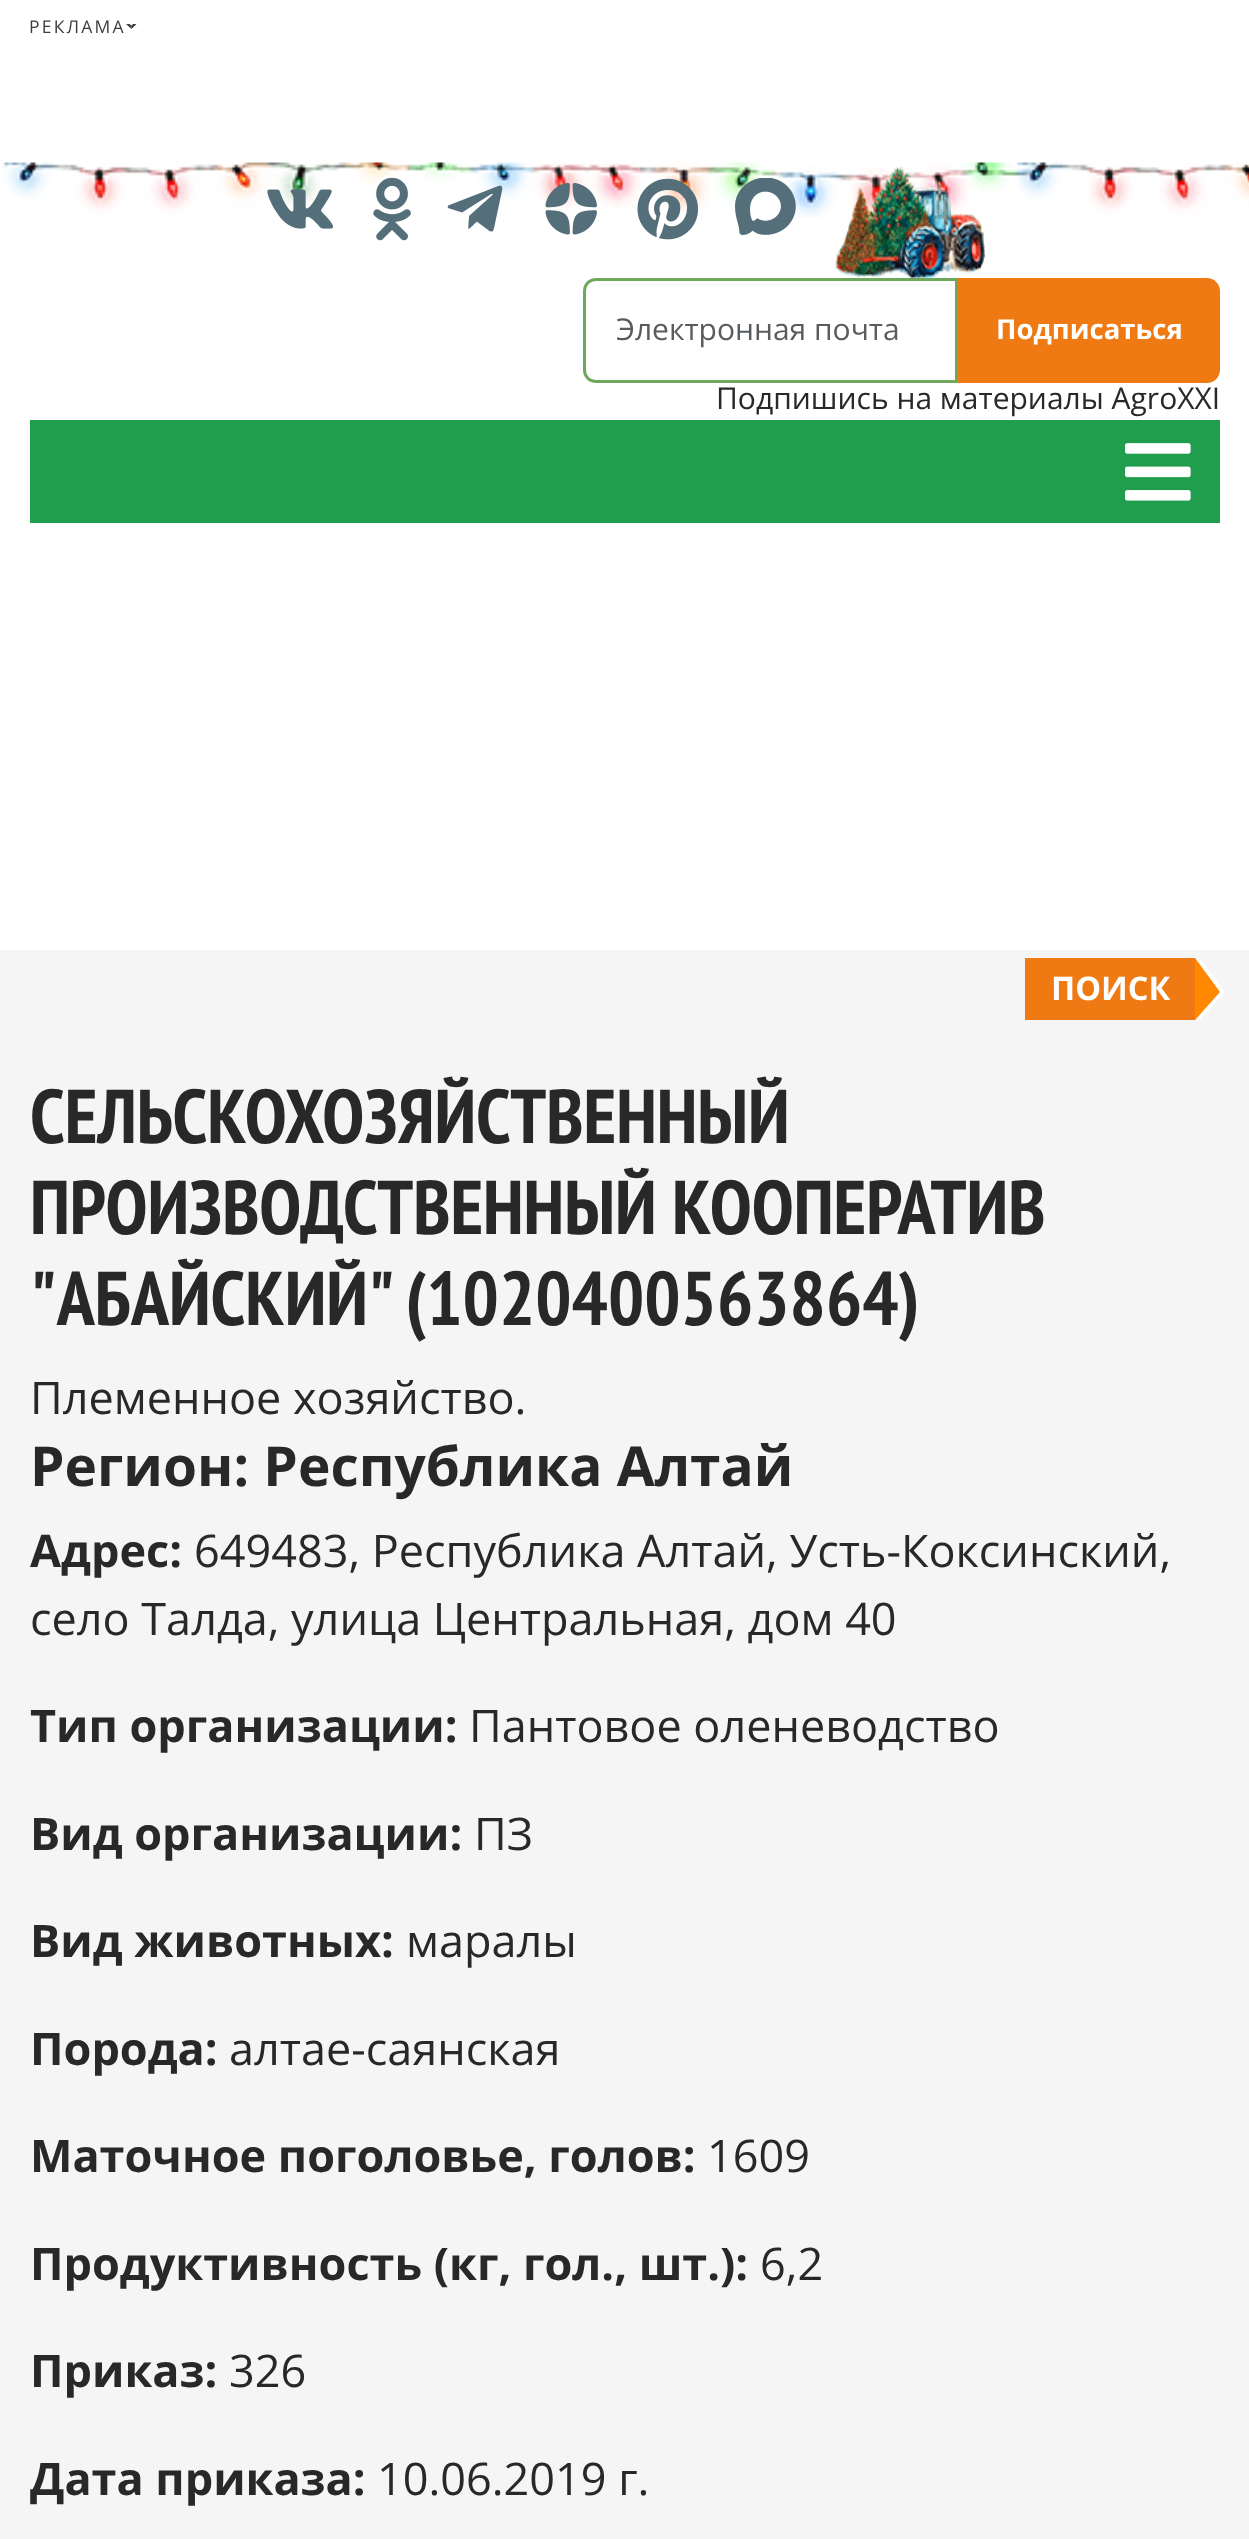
<svg xmlns="http://www.w3.org/2000/svg" width="1249" height="2539">
	<rect width="100%" height="100%" fill="#FFFFFF" />
	<text x="29" y="33" font-family="Open Sans" font-size="17.5" letter-spacing="2.25" fill="#3A3C40">РЕКЛАМА</text>
	<path d="M136.5 24L131.5 29V25.5L133 24Z" fill="#3A3C40" />
	<path d="M131.5 29L126 24H129.5L131.5 25.5Z" fill="#3A3C40" />
	<image x="2" y="162" width="1247" height="56" href="assets/img1.png" />
	<image x="267" y="189" width="66" height="40" href="assets/img2.png" />
	<image x="373" y="177" width="38" height="64" href="assets/img3.png" />
	<image x="447" y="185" width="56" height="47" href="assets/img4.png" />
	<image x="545" y="183" width="52" height="52" href="assets/img5.png" />
	<image x="637" y="178" width="62" height="62" href="assets/img6.png" />
	<image x="735" y="178" width="61" height="57" href="assets/img7.png" />
	<image x="835" y="166" width="150" height="112" href="assets/img8.png" />
	<path d="M596 279.5H956.5V381.5H596C589.5 381.5 584.5 376.5 584.5 370V291C584.5 284.5 589.5 279.5 596 279.5Z" fill="none" stroke="#6EA85B" stroke-width="3" />
	<text x="616" y="340" font-family="Open Sans" font-size="30" fill="#595C5F">Электронная почта</text>
	<path d="M958 278H1207C1214 278 1220 284 1220 291V370C1220 377 1214 383 1207 383H958Z" fill="#EF7A13" />
	<text x="996" y="339" font-family="Open Sans" font-size="27.5" font-weight="700" fill="#FFFFFF">Подписаться</text>
	<text x="716" y="409" font-family="Open Sans" font-size="30" fill="#282828">Подпишись на материалы AgroXXI</text>
	<rect x="30" y="420" width="1190" height="103" fill="#209D4D" />
	<image x="1125" y="443" width="66" height="58" href="assets/img9.png" />
	<rect x="0" y="950" width="1249" height="1589" fill="#F5F5F5" />
	<rect x="1025" y="958" width="170" height="62" fill="#EF7A13" />
	<path d="M1200 1020V958L1225 992Z" fill="#FFFFFF" />
	<path d="M1195 1020V958L1220 992Z" fill="#FF8800" />
	<text x="1051" y="1000" font-family="Open Sans" font-size="32.5" font-weight="700" fill="#FFFFFF">ПОИСК</text>
	<g font-family="PT Sans Narrow" font-size="76" font-weight="700" fill="#282828">
		<text x="30" y="1143">СЕЛЬСКОХОЗЯЙСТВЕННЫЙ</text>
		<text x="30" y="1234">ПРОИЗВОДСТВЕННЫЙ КООПЕРАТИВ</text>
		<text x="30" y="1325" word-spacing="-5">"АБАЙСКИЙ" (1020400563864)</text>
	</g>
	<text x="30" y="1414" font-family="Open Sans" font-size="45" fill="#282828">Племенное хозяйство.</text>
	<text x="30" y="1486" font-family="Open Sans" font-size="55" font-weight="700" fill="#282828">Регион: Республика Алтай</text>
	<text x="30" y="1567" font-family="Open Sans" font-size="45" font-weight="700" fill="#282828">Адрес:</text>
	<g font-family="Open Sans" font-size="45" fill="#282828">
		<text x="194" y="1567">649483, Республика Алтай, Усть-Коксинский,</text>
		<text x="30" y="1635">село Талда, улица Центральная, дом 40</text>
	</g>
	<text x="30" y="1742" font-family="Open Sans" font-size="45" font-weight="700" fill="#282828">Тип организации:</text>
	<text x="469" y="1742" font-family="Open Sans" font-size="45" fill="#282828">Пантовое оленеводство</text>
	<text x="30" y="1850" font-family="Open Sans" font-size="45" font-weight="700" fill="#282828">Вид организации:</text>
	<text x="474" y="1850" font-family="Open Sans" font-size="45" fill="#282828">ПЗ</text>
	<text x="30" y="1957" font-family="Open Sans" font-size="45" font-weight="700" fill="#282828">Вид животных:</text>
	<text x="406" y="1957" font-family="Open Sans" font-size="45" fill="#282828">маралы</text>
	<text x="30" y="2065" font-family="Open Sans" font-size="45" font-weight="700" fill="#282828">Порода:</text>
	<text x="229" y="2065" font-family="Open Sans" font-size="45" fill="#282828">алтае-саянская</text>
	<text x="30" y="2172" font-family="Open Sans" font-size="45" font-weight="700" fill="#282828">Маточное поголовье, голов:</text>
	<text x="707" y="2172" font-family="Open Sans" font-size="45" fill="#282828">1609</text>
	<text x="30" y="2280" font-family="Open Sans" font-size="45" font-weight="700" fill="#282828">Продуктивность (кг, гол., шт.):</text>
	<text x="760" y="2280" font-family="Open Sans" font-size="45" fill="#282828">6,2</text>
	<text x="30" y="2387" font-family="Open Sans" font-size="45" font-weight="700" fill="#282828">Приказ:</text>
	<text x="229" y="2387" font-family="Open Sans" font-size="45" fill="#282828">326</text>
	<text x="30" y="2495" font-family="Open Sans" font-size="45" font-weight="700" fill="#282828">Дата приказа:</text>
	<text x="377" y="2495" font-family="Open Sans" font-size="45" fill="#282828">10.06.2019 г.</text>
</svg>
